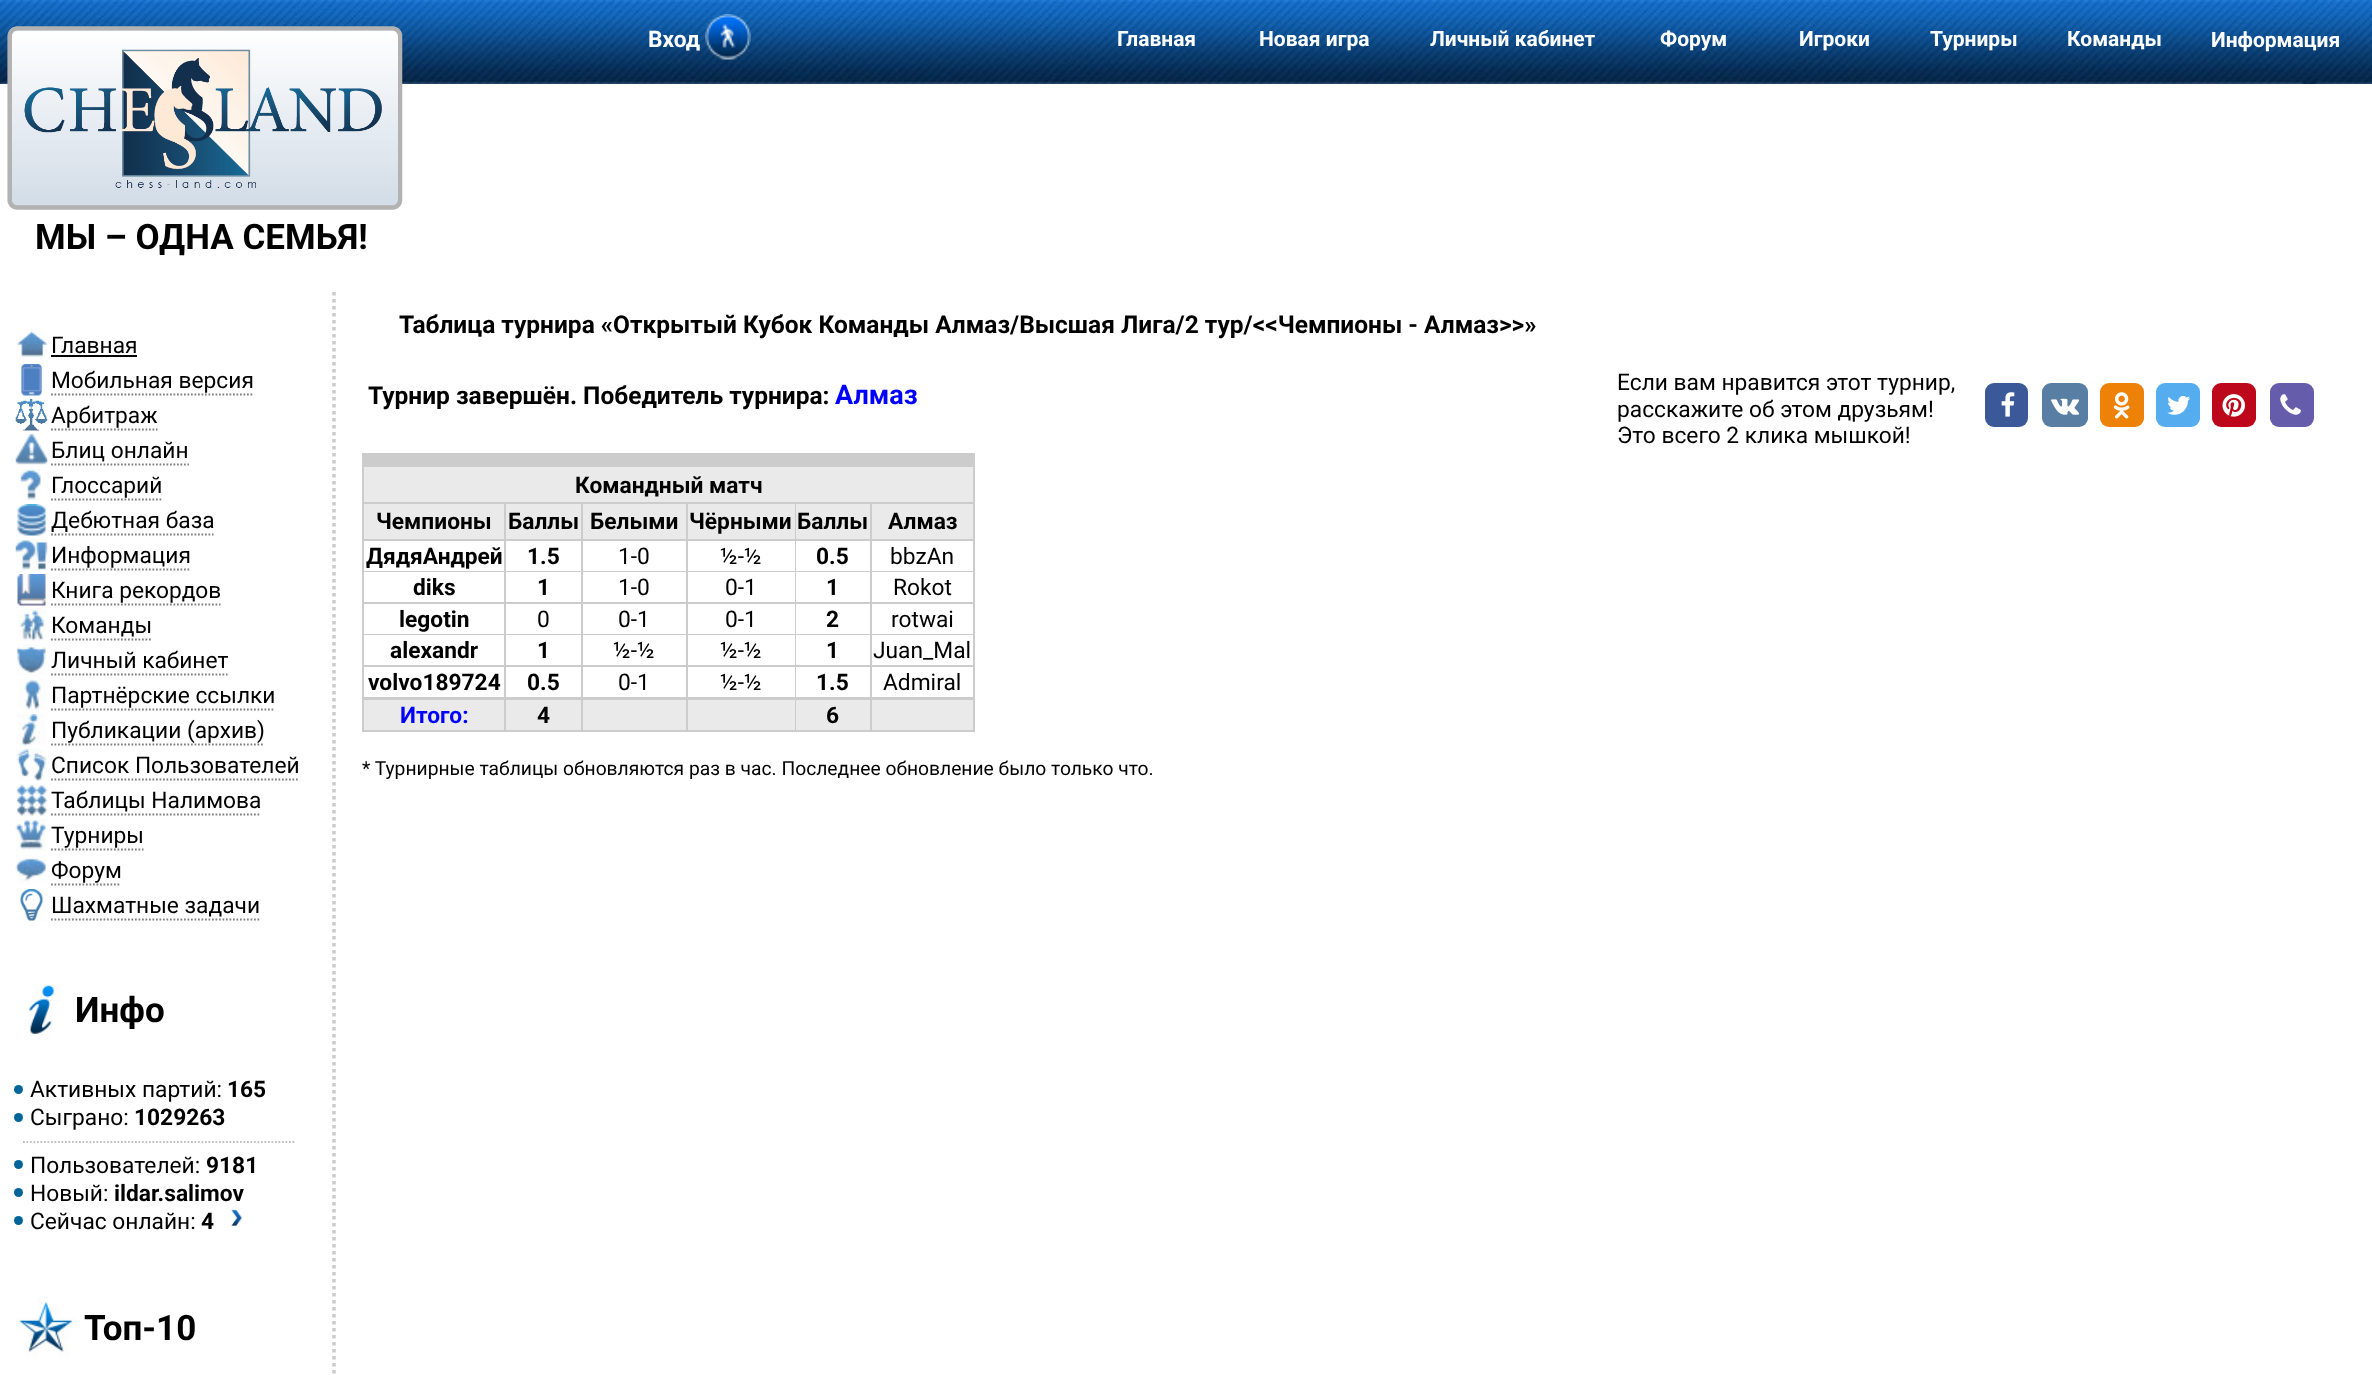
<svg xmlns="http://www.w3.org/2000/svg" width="2372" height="1375">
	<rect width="100%" height="100%" fill="#FFFFFF" />
	<image x="0" y="0" width="2372" height="84" href="assets/img1.png" />
	<text x="648" y="47" font-family="Roboto" font-size="22.75" font-weight="700" fill="#FFFFFF">Вход</text>
	<image x="705" y="14" width="46" height="46" href="assets/img2.png" />
	<g font-family="Roboto" font-size="21" font-weight="700" fill="#FFFFFF">
		<text x="1117" y="46">Главная</text>
		<text x="1259" y="46">Новая игра</text>
		<text x="1430" y="46">Личный кабинет</text>
		<text x="1660" y="46">Форум</text>
		<text x="1799" y="46">Игроки</text>
		<text x="1930" y="46">Турниры</text>
		<text x="2067" y="46">Команды</text>
		<text x="2211" y="47">Информация</text>
	</g>
	<image x="7" y="26" width="396" height="184" href="assets/img3.png" />
	<text x="35" y="249" font-family="Roboto" font-size="35" font-weight="700" fill="#000000">МЫ – ОДНА СЕМЬЯ!</text>
	<image x="16" y="329" width="32" height="31" href="assets/img4.png" />
	<text x="51" y="353" font-family="Roboto" font-size="22.75" fill="#000000">Главная</text>
	<rect x="51" y="355" width="86" height="2" fill="#000000" />
	<image x="21" y="364" width="22" height="32" href="assets/img5.png" />
	<text x="51" y="388" font-family="Roboto" font-size="22.75" fill="#000000">Мобильная версия</text>
	<path d="M51 394.5H254" fill="none" stroke="#808080" stroke-width="1.8" stroke-dasharray="1.75 1.75" />
	<image x="15" y="399" width="33" height="32" href="assets/img6.png" />
	<text x="51" y="423" font-family="Roboto" font-size="22.75" fill="#000000">Арбитраж</text>
	<path d="M51 429.5H157.5" fill="none" stroke="#808080" stroke-width="1.8" stroke-dasharray="1.75 1.75" />
	<image x="15" y="434" width="33" height="31" href="assets/img7.png" />
	<text x="51" y="458" font-family="Roboto" font-size="22.75" fill="#000000">Блиц онлайн</text>
	<path d="M51 464.5H189" fill="none" stroke="#808080" stroke-width="1.8" stroke-dasharray="1.75 1.75" />
	<image x="20" y="469" width="21" height="32" href="assets/img8.png" />
	<text x="51" y="493" font-family="Roboto" font-size="22.75" fill="#000000">Глоссарий</text>
	<path d="M51 499.5H163" fill="none" stroke="#808080" stroke-width="1.8" stroke-dasharray="1.75 1.75" />
	<image x="17" y="504" width="30" height="32" href="assets/img9.png" />
	<text x="51" y="528" font-family="Roboto" font-size="22.75" fill="#000000">Дебютная база</text>
	<path d="M51 534.5H213.5" fill="none" stroke="#808080" stroke-width="1.8" stroke-dasharray="1.75 1.75" />
	<image x="15" y="539" width="33" height="32" href="assets/img10.png" />
	<text x="51" y="563" font-family="Roboto" font-size="22.75" fill="#000000">Информация</text>
	<path d="M51 569.5H191" fill="none" stroke="#808080" stroke-width="1.8" stroke-dasharray="1.75 1.75" />
	<image x="17" y="574" width="29" height="32" href="assets/img11.png" />
	<text x="51" y="598" font-family="Roboto" font-size="22.75" fill="#000000">Книга рекордов</text>
	<path d="M51 604.5H220.5" fill="none" stroke="#808080" stroke-width="1.8" stroke-dasharray="1.75 1.75" />
	<image x="17" y="609" width="30" height="32" href="assets/img12.png" />
	<text x="51" y="633" font-family="Roboto" font-size="22.75" fill="#000000">Команды</text>
	<path d="M51 639.5H152" fill="none" stroke="#808080" stroke-width="1.8" stroke-dasharray="1.75 1.75" />
	<image x="16" y="644" width="30" height="32" href="assets/img13.png" />
	<text x="51" y="668" font-family="Roboto" font-size="22.75" fill="#000000">Личный кабинет</text>
	<path d="M51 674.5H227.5" fill="none" stroke="#808080" stroke-width="1.8" stroke-dasharray="1.75 1.75" />
	<image x="19" y="679" width="28" height="31" href="assets/img14.png" />
	<text x="51" y="703" font-family="Roboto" font-size="22.75" fill="#000000">Партнёрские ссылки</text>
	<path d="M51 709.5H275" fill="none" stroke="#808080" stroke-width="1.8" stroke-dasharray="1.75 1.75" />
	<image x="17" y="714" width="29" height="32" href="assets/img15.png" />
	<path d="M51 744.5H264" fill="none" stroke="#808080" stroke-width="1.8" stroke-dasharray="1.75 1.75" />
	<text x="51" y="738" font-family="Roboto" font-size="22.75" fill="#000000">Публикации (архив)</text>
	<image x="16" y="749" width="31" height="32" href="assets/img16.png" />
	<text x="51" y="773" font-family="Roboto" font-size="22.75" fill="#000000">Список Пользователей</text>
	<path d="M51 779.5H299" fill="none" stroke="#808080" stroke-width="1.8" stroke-dasharray="1.75 1.75" />
	<image x="16" y="784" width="32" height="32" href="assets/img17.png" />
	<text x="51" y="808" font-family="Roboto" font-size="22.75" fill="#000000">Таблицы Налимова</text>
	<path d="M51 814.5H261" fill="none" stroke="#808080" stroke-width="1.8" stroke-dasharray="1.75 1.75" />
	<image x="15" y="819" width="31" height="32" href="assets/img18.png" />
	<text x="51" y="843" font-family="Roboto" font-size="22.75" fill="#000000">Турниры</text>
	<path d="M51 849.5H143.5" fill="none" stroke="#808080" stroke-width="1.8" stroke-dasharray="1.75 1.75" />
	<image x="15" y="854" width="31" height="31" href="assets/img19.png" />
	<text x="51" y="878" font-family="Roboto" font-size="22.75" fill="#000000">Форум</text>
	<path d="M51 884.5H121" fill="none" stroke="#808080" stroke-width="1.8" stroke-dasharray="1.75 1.75" />
	<image x="20" y="889" width="24" height="32" href="assets/img20.png" />
	<text x="51" y="913" font-family="Roboto" font-size="22.75" fill="#000000">Шахматные задачи</text>
	<path d="M51 919.5H261" fill="none" stroke="#808080" stroke-width="1.8" stroke-dasharray="1.75 1.75" />
	<image x="25" y="983" width="37" height="53" href="assets/img21.png" />
	<text x="75" y="1022" font-family="Roboto" font-size="35" font-weight="700" fill="#000000">Инфо</text>
	<circle cx="18.5" cy="1089.5" r="4.5" fill="#006699" />
	<text x="30" y="1097" font-family="Roboto" font-size="22.75" fill="#000000">Активных партий:</text>
	<text x="227" y="1097" font-family="Roboto" font-size="22.75" font-weight="700" fill="#000000">165</text>
	<circle cx="18.5" cy="1117.5" r="4.5" fill="#006699" />
	<text x="30" y="1125" font-family="Roboto" font-size="22.75" fill="#000000">Сыграно:</text>
	<text x="134" y="1125" font-family="Roboto" font-size="22.75" font-weight="700" fill="#000000">1029263</text>
	<path d="M23 1142H296" fill="none" stroke="#C0C0C0" stroke-width="1.8" stroke-dasharray="1.75 1.75" />
	<circle cx="18.5" cy="1164.5" r="4.5" fill="#006699" />
	<text x="30" y="1173" font-family="Roboto" font-size="22.75" fill="#000000">Пользователей:</text>
	<text x="206" y="1173" font-family="Roboto" font-size="22.75" font-weight="700" fill="#000000">9181</text>
	<circle cx="18.5" cy="1192.5" r="4.5" fill="#006699" />
	<text x="30" y="1201" font-family="Roboto" font-size="22.75" fill="#000000">Новый:</text>
	<text x="114" y="1201" font-family="Roboto" font-size="22.75" font-weight="700" fill="#000000">ildar.salimov</text>
	<circle cx="18.5" cy="1220.5" r="4.5" fill="#006699" />
	<text x="30" y="1229" font-family="Roboto" font-size="22.75" fill="#000000">Сейчас онлайн:</text>
	<text x="201" y="1229" font-family="Roboto" font-size="22.75" font-weight="700" fill="#000000">4</text>
	<image x="230" y="1207" width="13" height="19" href="assets/img22.png" />
	<image x="16" y="1297" width="61" height="61" href="assets/img23.png" />
	<text x="84" y="1340" font-family="Roboto" font-size="35" font-weight="700" fill="#000000">Топ-10</text>
	<path d="M334 292V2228" fill="none" stroke="#CCCCCC" stroke-width="3.5" stroke-dasharray="3.5 3.5" />
	<g font-family="Roboto" font-size="24.5" font-weight="700" fill="#000000">
		<text x="399" y="333">Таблица турнира «Открытый Кубок Команды Алмаз/Выcшая Лига/2 тур/&lt;&lt;Чемпионы - Алмаз&gt;&gt;»</text>
		<text x="368" y="404">Турнир завершён. Победитель турнира:</text>
	</g>
	<text x="835" y="404" font-family="Roboto" font-size="27" font-weight="700" fill="#0000FF">Алмаз</text>
	<g font-family="Roboto" font-size="22.75" fill="#000000">
		<text x="1617" y="390">Если вам нравится этот турнир,</text>
		<text x="1617" y="417">расскажите об этом друзьям!</text>
		<text x="1617" y="443">Это всего 2 клика мышкой!</text>
	</g>
	<rect x="1985" y="383" width="43" height="44" rx="9" fill="#3B5998" />
	<image x="2001" y="392" width="14" height="25" href="assets/img24.png" />
	<rect x="2042" y="383" width="46" height="44" rx="9" fill="#587EA3" />
	<image x="2051" y="398" width="29" height="17" href="assets/img25.png" />
	<rect x="2100" y="383" width="44" height="44" rx="9" fill="#EE8208" />
	<image x="2113" y="392" width="17" height="27" href="assets/img26.png" />
	<rect x="2156" y="383" width="44" height="44" rx="9" fill="#55ACEE" />
	<image x="2167" y="396" width="23" height="19" href="assets/img27.png" />
	<rect x="2212" y="383" width="44" height="44" rx="9" fill="#BD081C" />
	<image x="2222" y="394" width="23" height="23" href="assets/img28.png" />
	<rect x="2270" y="383" width="44" height="44" rx="9" fill="#665CAC" />
	<image x="2280" y="394" width="21" height="21" href="assets/img29.png" />
	<rect x="362" y="453" width="613" height="279" fill="#CCCCCC" />
	<rect x="364" y="467" width="609" height="35" fill="#EAEAEA" />
	<text x="575" y="493" font-family="Roboto" font-size="22.75" font-weight="700" fill="#000000">Командный матч</text>
	<rect x="364" y="504" width="140" height="35" fill="#EAEAEA" />
	<text x="376" y="529" font-family="Roboto" font-size="22.75" font-weight="700" fill="#000000">Чемпионы</text>
	<rect x="506" y="504" width="75" height="35" fill="#EAEAEA" />
	<text x="508" y="529" font-family="Roboto" font-size="22.75" font-weight="700" fill="#000000">Баллы</text>
	<rect x="583" y="504" width="103" height="35" fill="#EAEAEA" />
	<text x="590" y="529" font-family="Roboto" font-size="22.75" font-weight="700" fill="#000000">Белыми</text>
	<rect x="688" y="504" width="107" height="35" fill="#EAEAEA" />
	<text x="689" y="529" font-family="Roboto" font-size="22.75" font-weight="700" fill="#000000">Чёрными</text>
	<rect x="796" y="504" width="74" height="35" fill="#EAEAEA" />
	<text x="797" y="529" font-family="Roboto" font-size="22.75" font-weight="700" fill="#000000">Баллы</text>
	<rect x="872" y="504" width="101" height="35" fill="#EAEAEA" />
	<text x="888" y="529" font-family="Roboto" font-size="22.75" font-weight="700" fill="#000000">Алмаз</text>
	<rect x="364" y="541" width="140" height="30" fill="#FFFFFF" />
	<text x="366" y="564" font-family="Roboto" font-size="22.75" font-weight="700" fill="#000000">ДядяАндрей</text>
	<rect x="506" y="541" width="75" height="30" fill="#FFFFFF" />
	<text x="527" y="564" font-family="Roboto" font-size="22.75" font-weight="700" fill="#000000">1.5</text>
	<rect x="583" y="541" width="103" height="30" fill="#FFFFFF" />
	<text x="618" y="564" font-family="Roboto" font-size="22.75" fill="#000000">1-0</text>
	<rect x="688" y="541" width="107" height="30" fill="#FFFFFF" />
	<text x="720" y="564" font-family="Roboto" font-size="22.75" fill="#000000">½-½</text>
	<rect x="796" y="541" width="74" height="30" fill="#FFFFFF" />
	<text x="816" y="564" font-family="Roboto" font-size="22.75" font-weight="700" fill="#000000">0.5</text>
	<rect x="872" y="541" width="101" height="30" fill="#FFFFFF" />
	<text x="890" y="564" font-family="Roboto" font-size="22.75" fill="#000000">bbzAn</text>
	<rect x="364" y="572" width="140" height="30" fill="#FFFFFF" />
	<text x="413" y="595" font-family="Roboto" font-size="22.75" font-weight="700" fill="#000000">diks</text>
	<rect x="506" y="572" width="75" height="30" fill="#FFFFFF" />
	<text x="537" y="595" font-family="Roboto" font-size="22.75" font-weight="700" fill="#000000">1</text>
	<rect x="583" y="572" width="103" height="30" fill="#FFFFFF" />
	<text x="618" y="595" font-family="Roboto" font-size="22.75" fill="#000000">1-0</text>
	<rect x="688" y="572" width="107" height="30" fill="#FFFFFF" />
	<text x="725" y="595" font-family="Roboto" font-size="22.75" fill="#000000">0-1</text>
	<rect x="796" y="572" width="74" height="30" fill="#FFFFFF" />
	<text x="826" y="595" font-family="Roboto" font-size="22.75" font-weight="700" fill="#000000">1</text>
	<rect x="872" y="572" width="101" height="30" fill="#FFFFFF" />
	<text x="893" y="595" font-family="Roboto" font-size="22.75" fill="#000000">Rokot</text>
	<rect x="364" y="604" width="140" height="30" fill="#FFFFFF" />
	<text x="399" y="627" font-family="Roboto" font-size="22.75" font-weight="700" fill="#000000">legotin</text>
	<rect x="506" y="604" width="75" height="30" fill="#FFFFFF" />
	<text x="537" y="627" font-family="Roboto" font-size="22.75" fill="#000000">0</text>
	<rect x="583" y="604" width="103" height="30" fill="#FFFFFF" />
	<text x="618" y="627" font-family="Roboto" font-size="22.75" fill="#000000">0-1</text>
	<rect x="688" y="604" width="107" height="30" fill="#FFFFFF" />
	<text x="725" y="627" font-family="Roboto" font-size="22.75" fill="#000000">0-1</text>
	<rect x="796" y="604" width="74" height="30" fill="#FFFFFF" />
	<text x="826" y="627" font-family="Roboto" font-size="22.75" font-weight="700" fill="#000000">2</text>
	<rect x="872" y="604" width="101" height="30" fill="#FFFFFF" />
	<text x="891" y="627" font-family="Roboto" font-size="22.75" fill="#000000">rotwai</text>
	<rect x="364" y="635" width="140" height="30" fill="#FFFFFF" />
	<text x="390" y="658" font-family="Roboto" font-size="22.75" font-weight="700" fill="#000000">alexandr</text>
	<rect x="506" y="635" width="75" height="30" fill="#FFFFFF" />
	<text x="537" y="658" font-family="Roboto" font-size="22.75" font-weight="700" fill="#000000">1</text>
	<rect x="583" y="635" width="103" height="30" fill="#FFFFFF" />
	<text x="613" y="658" font-family="Roboto" font-size="22.75" fill="#000000">½-½</text>
	<rect x="688" y="635" width="107" height="30" fill="#FFFFFF" />
	<text x="720" y="658" font-family="Roboto" font-size="22.75" fill="#000000">½-½</text>
	<rect x="796" y="635" width="74" height="30" fill="#FFFFFF" />
	<text x="826" y="658" font-family="Roboto" font-size="22.75" font-weight="700" fill="#000000">1</text>
	<rect x="872" y="635" width="101" height="30" fill="#FFFFFF" />
	<text x="873" y="658" font-family="Roboto" font-size="22.75" fill="#000000">Juan_Mal</text>
	<rect x="364" y="667" width="140" height="30" fill="#FFFFFF" />
	<text x="368" y="690" font-family="Roboto" font-size="22.75" font-weight="700" fill="#000000">volvo189724</text>
	<rect x="506" y="667" width="75" height="30" fill="#FFFFFF" />
	<text x="527" y="690" font-family="Roboto" font-size="22.75" font-weight="700" fill="#000000">0.5</text>
	<rect x="583" y="667" width="103" height="30" fill="#FFFFFF" />
	<text x="618" y="690" font-family="Roboto" font-size="22.75" fill="#000000">0-1</text>
	<rect x="688" y="667" width="107" height="30" fill="#FFFFFF" />
	<text x="720" y="690" font-family="Roboto" font-size="22.75" fill="#000000">½-½</text>
	<rect x="796" y="667" width="74" height="30" fill="#FFFFFF" />
	<text x="816" y="690" font-family="Roboto" font-size="22.75" font-weight="700" fill="#000000">1.5</text>
	<rect x="872" y="667" width="101" height="30" fill="#FFFFFF" />
	<text x="883" y="690" font-family="Roboto" font-size="22.75" fill="#000000">Admiral</text>
	<rect x="364" y="700" width="140" height="30" fill="#EAEAEA" />
	<text x="400" y="723" font-family="Roboto" font-size="22.75" font-weight="700" fill="#0000FF">Итого:</text>
	<rect x="506" y="700" width="75" height="30" fill="#EAEAEA" />
	<text x="537" y="723" font-family="Roboto" font-size="22.75" font-weight="700" fill="#000000">4</text>
	<rect x="583" y="700" width="103" height="30" fill="#EAEAEA" />
	<rect x="688" y="700" width="107" height="30" fill="#EAEAEA" />
	<rect x="796" y="700" width="74" height="30" fill="#EAEAEA" />
	<text x="826" y="723" font-family="Roboto" font-size="22.75" font-weight="700" fill="#000000">6</text>
	<rect x="872" y="700" width="101" height="30" fill="#EAEAEA" />
	<text x="362" y="775" font-family="Roboto" font-size="19.25" fill="#000000">* Турнирные таблицы обновляются раз в час. Последнее обновление было только что.</text>
</svg>
